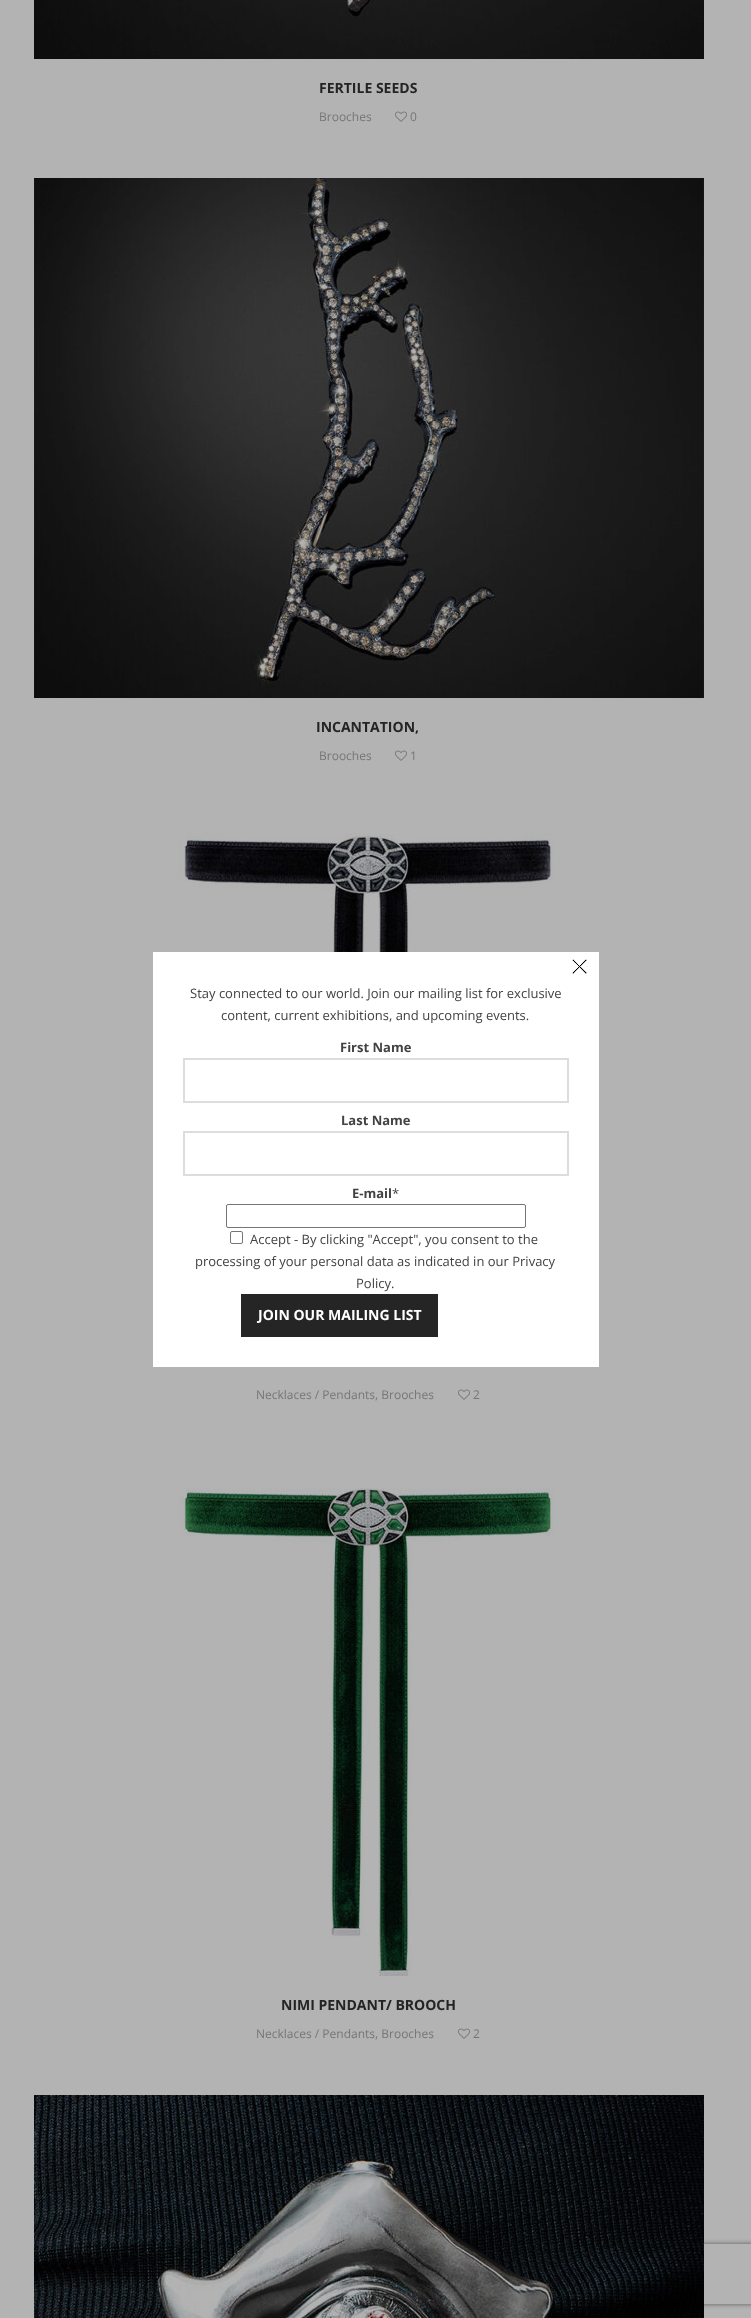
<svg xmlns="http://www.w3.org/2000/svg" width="751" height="2318">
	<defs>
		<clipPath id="clip1"><path d="M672 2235H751V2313H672ZM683 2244H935C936 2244 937 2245 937 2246V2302C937 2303 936 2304 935 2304H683C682 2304 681 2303 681 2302V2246C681 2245 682 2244 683 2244Z" clip-rule="evenodd" /></clipPath>
	</defs>
	<rect width="100%" height="100%" fill="#B3B3B3" />
	<image x="34" y="0" width="670" height="59" href="assets/img1.png" />
	<text x="319" y="93" font-family="Open Sans" font-size="14" font-weight="700" fill="#242424">FERTILE SEEDS</text>
	<text x="319" y="121" font-family="Open Sans" font-size="12" fill="#767676">Brooches</text>
	<image x="395" y="111" width="12" height="11" href="assets/img2.png" />
	<text x="410" y="121" font-family="Open Sans" font-size="12" fill="#767676">0</text>
	<image x="34" y="178" width="670" height="520" href="assets/img3.png" />
	<text x="316" y="732" font-family="Open Sans" font-size="14" font-weight="700" fill="#242424">INCANTATION,</text>
	<text x="319" y="760" font-family="Open Sans" font-size="12" fill="#767676">Brooches</text>
	<image x="395" y="750" width="12" height="11" href="assets/img2.png" />
	<text x="410" y="760" font-family="Open Sans" font-size="12" fill="#767676">1</text>
	<image x="178" y="833" width="376" height="119" href="assets/img4.png" />
	<text x="256" y="1399" font-family="Open Sans" font-size="12" fill="#767676">Necklaces / Pendants, Brooches</text>
	<image x="458" y="1389" width="12" height="11" href="assets/img2.png" />
	<text x="473" y="1399" font-family="Open Sans" font-size="12" fill="#767676">2</text>
	<image x="178" y="1488" width="376" height="488" href="assets/img5.png" />
	<text x="281" y="2010" font-family="Open Sans" font-size="14" font-weight="700" fill="#242424">NIMI PENDANT/ BROOCH</text>
	<text x="256" y="2038" font-family="Open Sans" font-size="12" fill="#767676">Necklaces / Pendants, Brooches</text>
	<image x="458" y="2028" width="12" height="11" href="assets/img2.png" />
	<text x="473" y="2038" font-family="Open Sans" font-size="12" fill="#767676">2</text>
	<g clip-path="url(#clip1)">
		<rect x="681" y="2244" width="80" height="60" rx="2" fill="#5A5A5A" filter="blur(2.5px)" />
	</g>
	<image x="34" y="2095" width="670" height="223" href="assets/img6.png" />
	<rect x="153" y="952" width="446" height="415" fill="#FFFFFF" />
	<image x="572" y="959" width="15" height="15" href="assets/img7.png" />
	<g font-family="Open Sans" font-size="13" fill="#424242">
		<text x="190" y="998">Stay connected to our world. Join our mailing list for exclusive</text>
		<text x="221" y="1020">content, current exhibitions, and upcoming events.</text>
	</g>
	<text x="340" y="1052" font-family="Open Sans" font-size="13" font-weight="700" fill="#424242">First Name</text>
	<rect x="184" y="1059" width="384" height="43" fill="none" stroke="#DDDDDD" stroke-width="2" />
	<text x="341" y="1125" font-family="Open Sans" font-size="13" font-weight="700" fill="#424242">Last Name</text>
	<rect x="184" y="1132" width="384" height="43" fill="none" stroke="#DDDDDD" stroke-width="2" />
	<text x="352" y="1198" font-family="Open Sans" font-size="13" font-weight="700" fill="#424242">E-mail</text>
	<text x="392" y="1198" font-family="Open Sans" font-size="13" fill="#424242">*</text>
	<rect x="226.5" y="1204.5" width="299" height="23" rx="1.5" fill="none" stroke="#767676" />
	<rect x="230.5" y="1231.5" width="12" height="12" rx="1.5" fill="none" stroke="#767676" />
	<g font-family="Open Sans" font-size="13" fill="#424242">
		<text x="250" y="1244">Accept</text>
		<text x="294" y="1244">- By clicking "Accept", you consent to the</text>
		<text x="195" y="1266">processing of your personal data as indicated in our Privacy</text>
		<text x="356" y="1288">Policy.</text>
	</g>
	<rect x="241" y="1294" width="197" height="43" fill="#262525" />
	<text x="258" y="1320" font-family="Open Sans" font-size="14" font-weight="700" fill="#FFFFFF">JOIN OUR MAILING LIST</text>
</svg>
